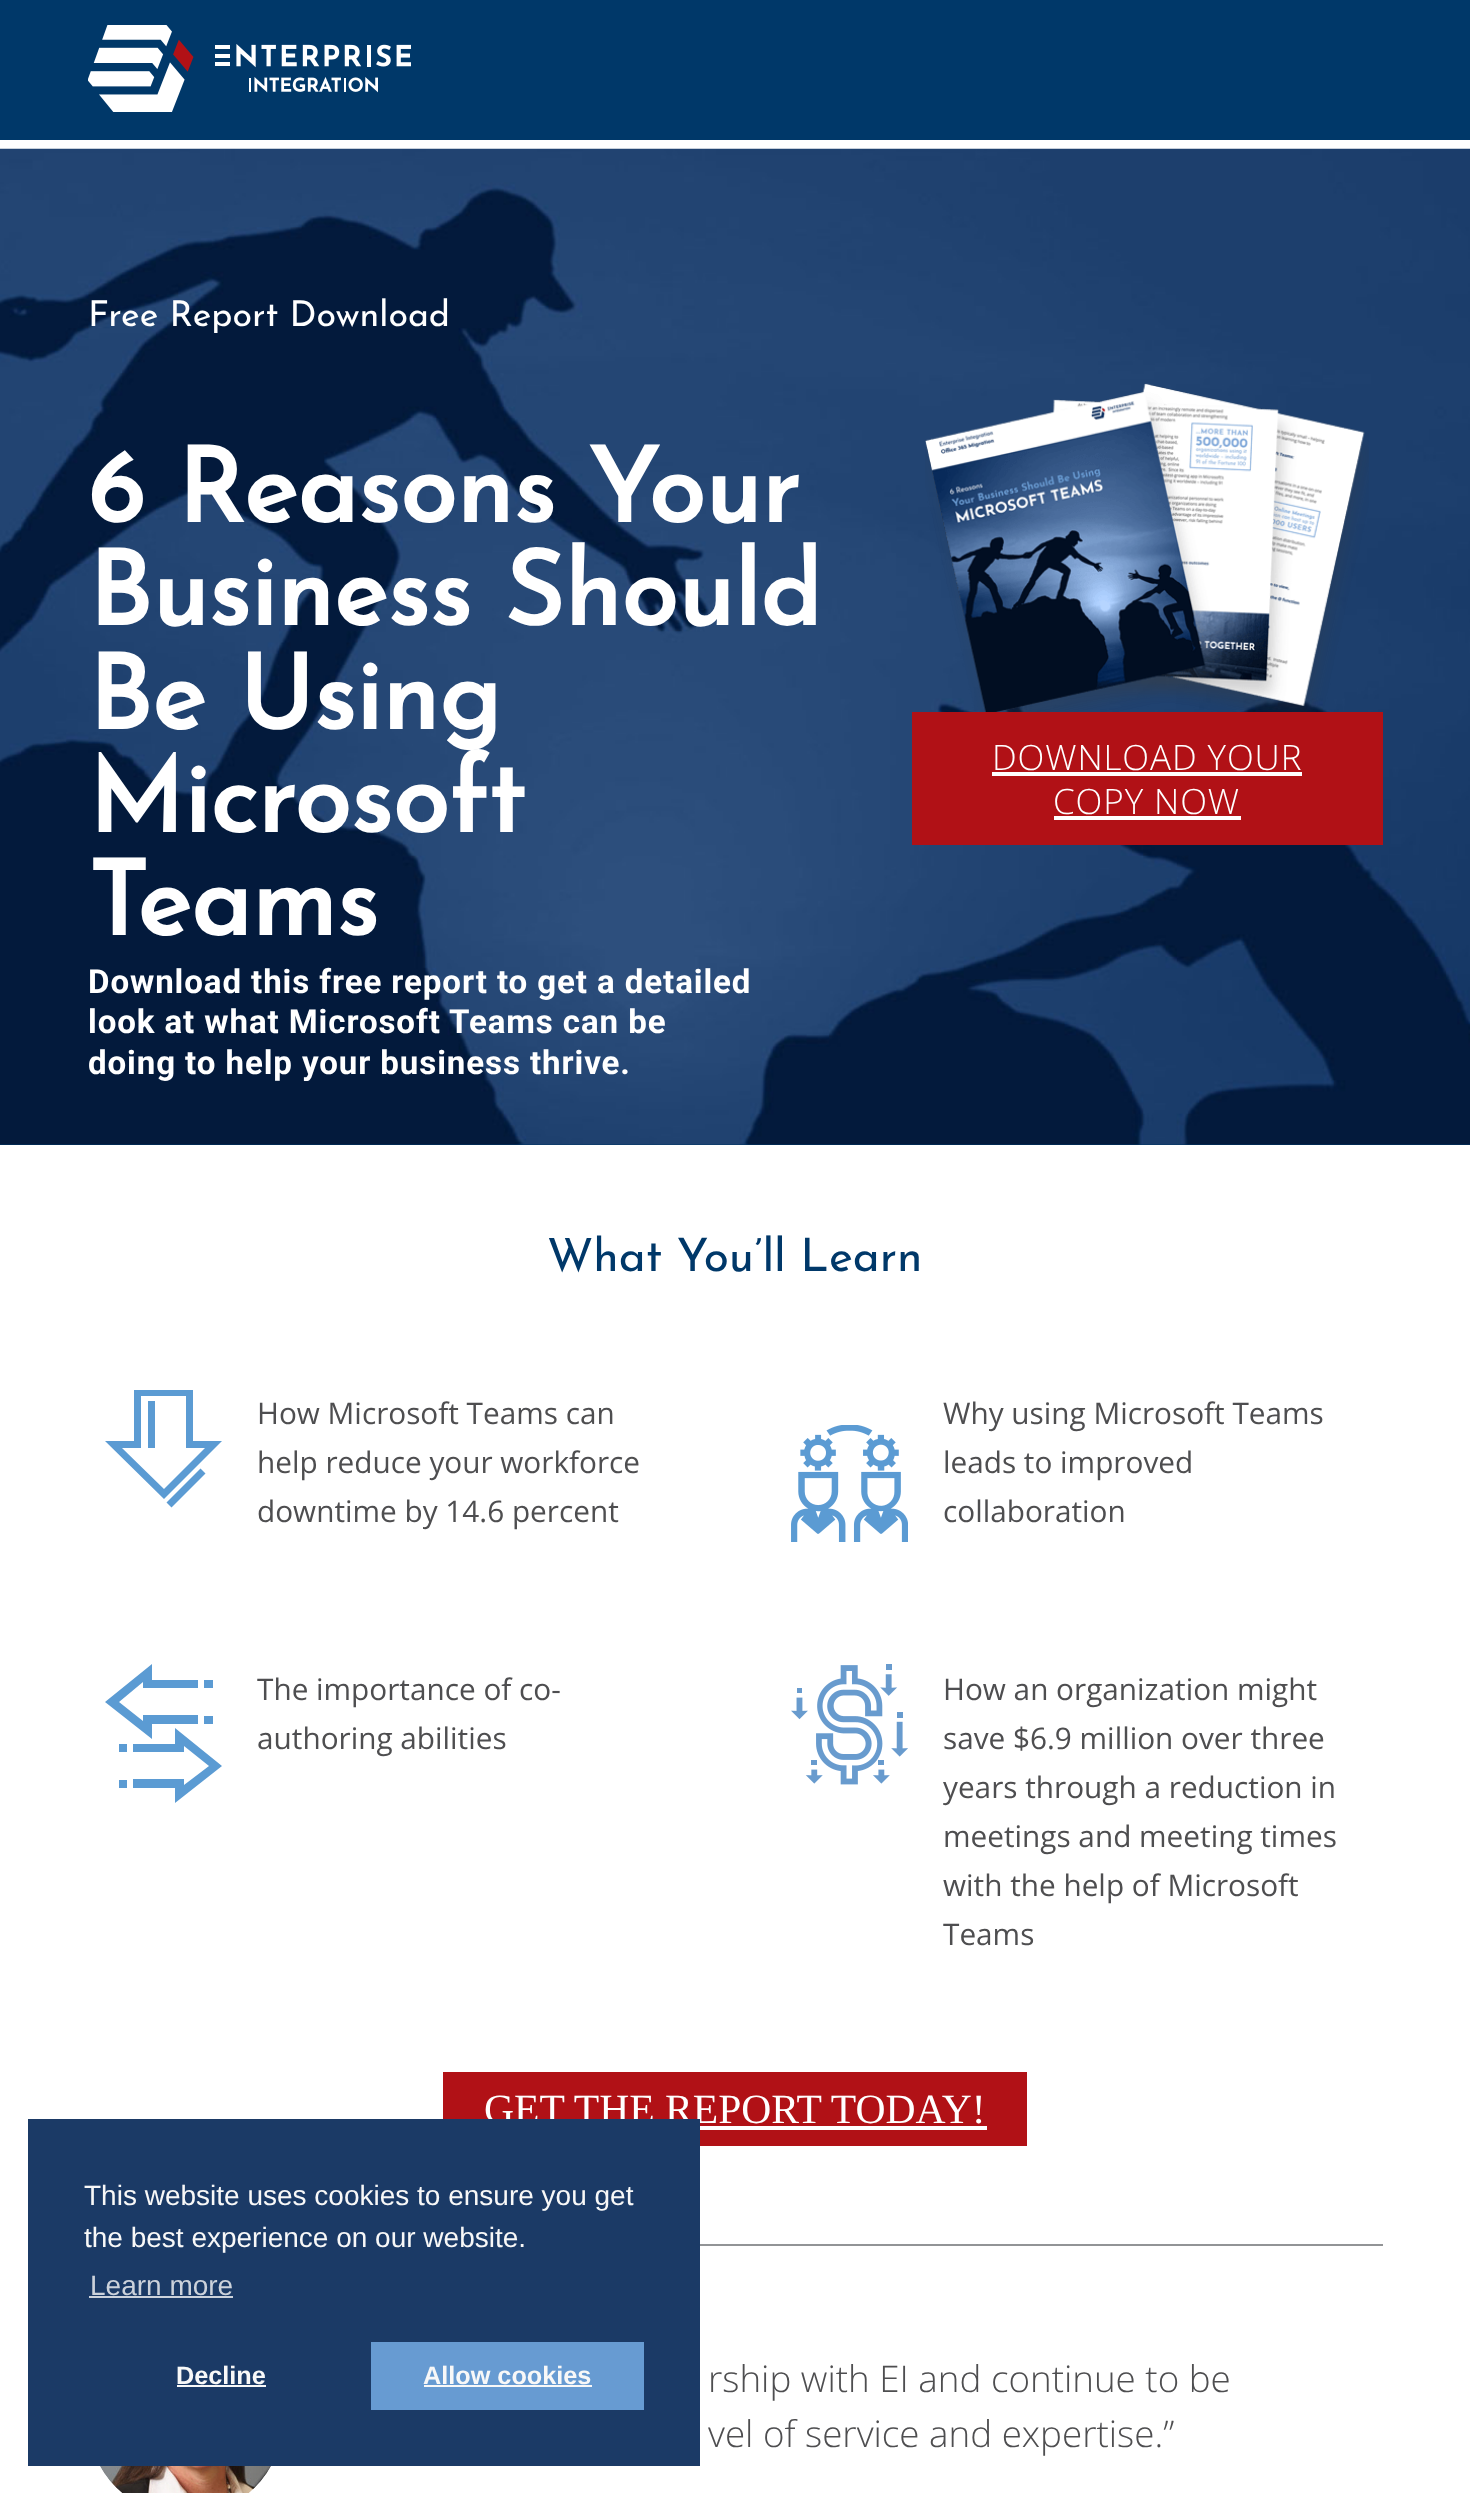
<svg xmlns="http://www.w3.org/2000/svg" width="1470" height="2493">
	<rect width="100%" height="100%" fill="#003869" />
	<rect x="0" y="140" width="1470" height="9" fill="#FFFFFF" />
	<image x="88" y="25" width="323" height="87" href="assets/img1.png" />
	<image x="0" y="148" width="1470" height="997" href="assets/img2.png" />
	<text x="88" y="326" font-family="Josefin Sans" font-size="35.75" font-weight="100" fill="#FFFFFF">Free Report Download</text>
	<g font-family="Josefin Sans" font-size="103.25" font-weight="700" fill="#FFFFFF">
		<text x="88" y="522">6 Reasons Your</text>
		<text x="88" y="625">Business Should</text>
		<text x="88" y="729">Be Using</text>
		<text x="88" y="832">Microsoft</text>
		<text x="88" y="935">Teams</text>
	</g>
	<g font-family="Roboto" font-size="33.1" font-weight="700" letter-spacing="0.9" fill="#FFFFFF">
		<text x="88" y="993">Download this free report to get a detailed</text>
		<text x="88" y="1033">look at what Microsoft Teams can be</text>
		<text x="88" y="1074">doing to help your business thrive.</text>
	</g>
	<image x="925" y="383" width="444" height="329" href="assets/img3.png" />
	<rect x="912" y="712" width="471" height="133" fill="#B11116" />
	<text x="992" y="770" font-family="Open Sans" font-size="35" font-weight="300" letter-spacing="0.9" fill="#FFFFFF">DOWNLOAD YOUR</text>
	<rect x="992" y="772" width="310" height="4" fill="#FFFFFF" />
	<text x="1053" y="814" font-family="Open Sans" font-size="35" font-weight="300" letter-spacing="0.9" fill="#FFFFFF">COPY NOW</text>
	<rect x="1054" y="816" width="187" height="4" fill="#FFFFFF" />
	<rect x="0" y="1145" width="1470" height="1348" fill="#FFFFFF" />
	<text x="547" y="1271" font-family="Josefin Sans" font-size="46" font-weight="100" fill="#003869">What You’ll Learn</text>
	<path d="M164 1499L105 1441H134V1390H193V1441H222ZM122 1448L164 1489L205 1448H186V1396H141V1448Z" fill="#5B9BD3" />
	<path d="M166.5 1502.5L200.5 1468.5L205.5 1473.5L171.5 1507.5Z" fill="#5B9BD3" />
	<rect x="148" y="1401" width="7" height="47" fill="#5B9BD3" />
	<g font-family="Open Sans" font-size="29.75" fill="#4E4E50">
		<text x="257" y="1424">How Microsoft Teams can</text>
		<text x="257" y="1473">help reduce your workforce</text>
		<text x="257" y="1522">downtime by 14.6 percent</text>
	</g>
	<image x="791" y="1425" width="117" height="117" href="assets/img4.png" />
	<g font-family="Open Sans" font-size="29.75" fill="#4E4E50">
		<text x="943" y="1424">Why using Microsoft Teams</text>
		<text x="943" y="1473">leads to improved</text>
		<text x="943" y="1522">collaboration</text>
	</g>
	<rect x="204" y="1716" width="9" height="8" fill="#5B9BD3" />
	<rect x="204" y="1680" width="9" height="8" fill="#5B9BD3" />
	<rect x="119" y="1744" width="8" height="8" fill="#5B9BD3" />
	<path d="M222 1766L175 1728V1744H133V1752H184V1746L209 1766L184 1785V1779H133V1788H175V1803Z" fill="#5B9BD3" />
	<path d="M152 1724H198V1715H143V1721L119 1702L143 1682V1688H198V1680H152V1664L105 1702L152 1739Z" fill="#5B9BD3" />
	<rect x="119" y="1780" width="8" height="8" fill="#5B9BD3" />
	<g font-family="Open Sans" font-size="29.75" fill="#4E4E50">
		<text x="257" y="1700">The importance of co-</text>
		<text x="257" y="1749">authoring abilities</text>
	</g>
	<image x="791" y="1664" width="117" height="121" href="assets/img5.png" />
	<g font-family="Open Sans" font-size="29.75" fill="#4E4E50">
		<text x="943" y="1700">How an organization might</text>
		<text x="943" y="1749">save $6.9 million over three</text>
		<text x="943" y="1798">years through a reduction in</text>
		<text x="943" y="1847">meetings and meeting times</text>
		<text x="943" y="1896">with the help of Microsoft</text>
		<text x="943" y="1945">Teams</text>
	</g>
	<rect x="443" y="2072" width="584" height="74" fill="#B11116" />
	<text x="484" y="2123" font-family="Liberation Serif" font-size="41.6" fill="#FFFFFF">GET THE REPORT TODAY!</text>
	<rect x="700" y="2126" width="287" height="4" fill="#FFFFFF" />
	<rect x="700" y="2244" width="683" height="2" fill="#929496" />
	<g font-family="Open Sans" font-size="36.75" font-weight="300" fill="#4E4E50">
		<text x="708" y="2392">rship with EI and continue to be</text>
		<text x="708" y="2447">vel of service and expertise.”</text>
	</g>
	<image x="100" y="2466" width="171" height="27" href="assets/img6.png" />
	<rect x="28" y="2119" width="672" height="347" fill="#1B3A66" />
	<g font-family="Liberation Sans" font-size="28" fill="#F8F8F8">
		<text x="84" y="2205">This website uses cookies to ensure you get</text>
		<text x="84" y="2247">the best experience on our website.</text>
	</g>
	<text x="90" y="2295" font-family="Liberation Sans" font-size="28" fill="#CCD2DB">Learn more</text>
	<rect x="89" y="2296" width="144" height="2" fill="#CCD2DB" />
	<text x="176" y="2384" font-family="Liberation Sans" font-size="25.25" font-weight="700" fill="#F8F8F8">Decline</text>
	<rect x="177" y="2385" width="89" height="2" fill="#F8F8F8" />
	<rect x="371" y="2342" width="273" height="68" fill="#679BD2" />
	<text x="423" y="2384" font-family="Liberation Sans" font-size="25.25" font-weight="700" fill="#F8F8F8">Allow cookies</text>
	<rect x="424" y="2385" width="168" height="2" fill="#F8F8F8" />
</svg>
